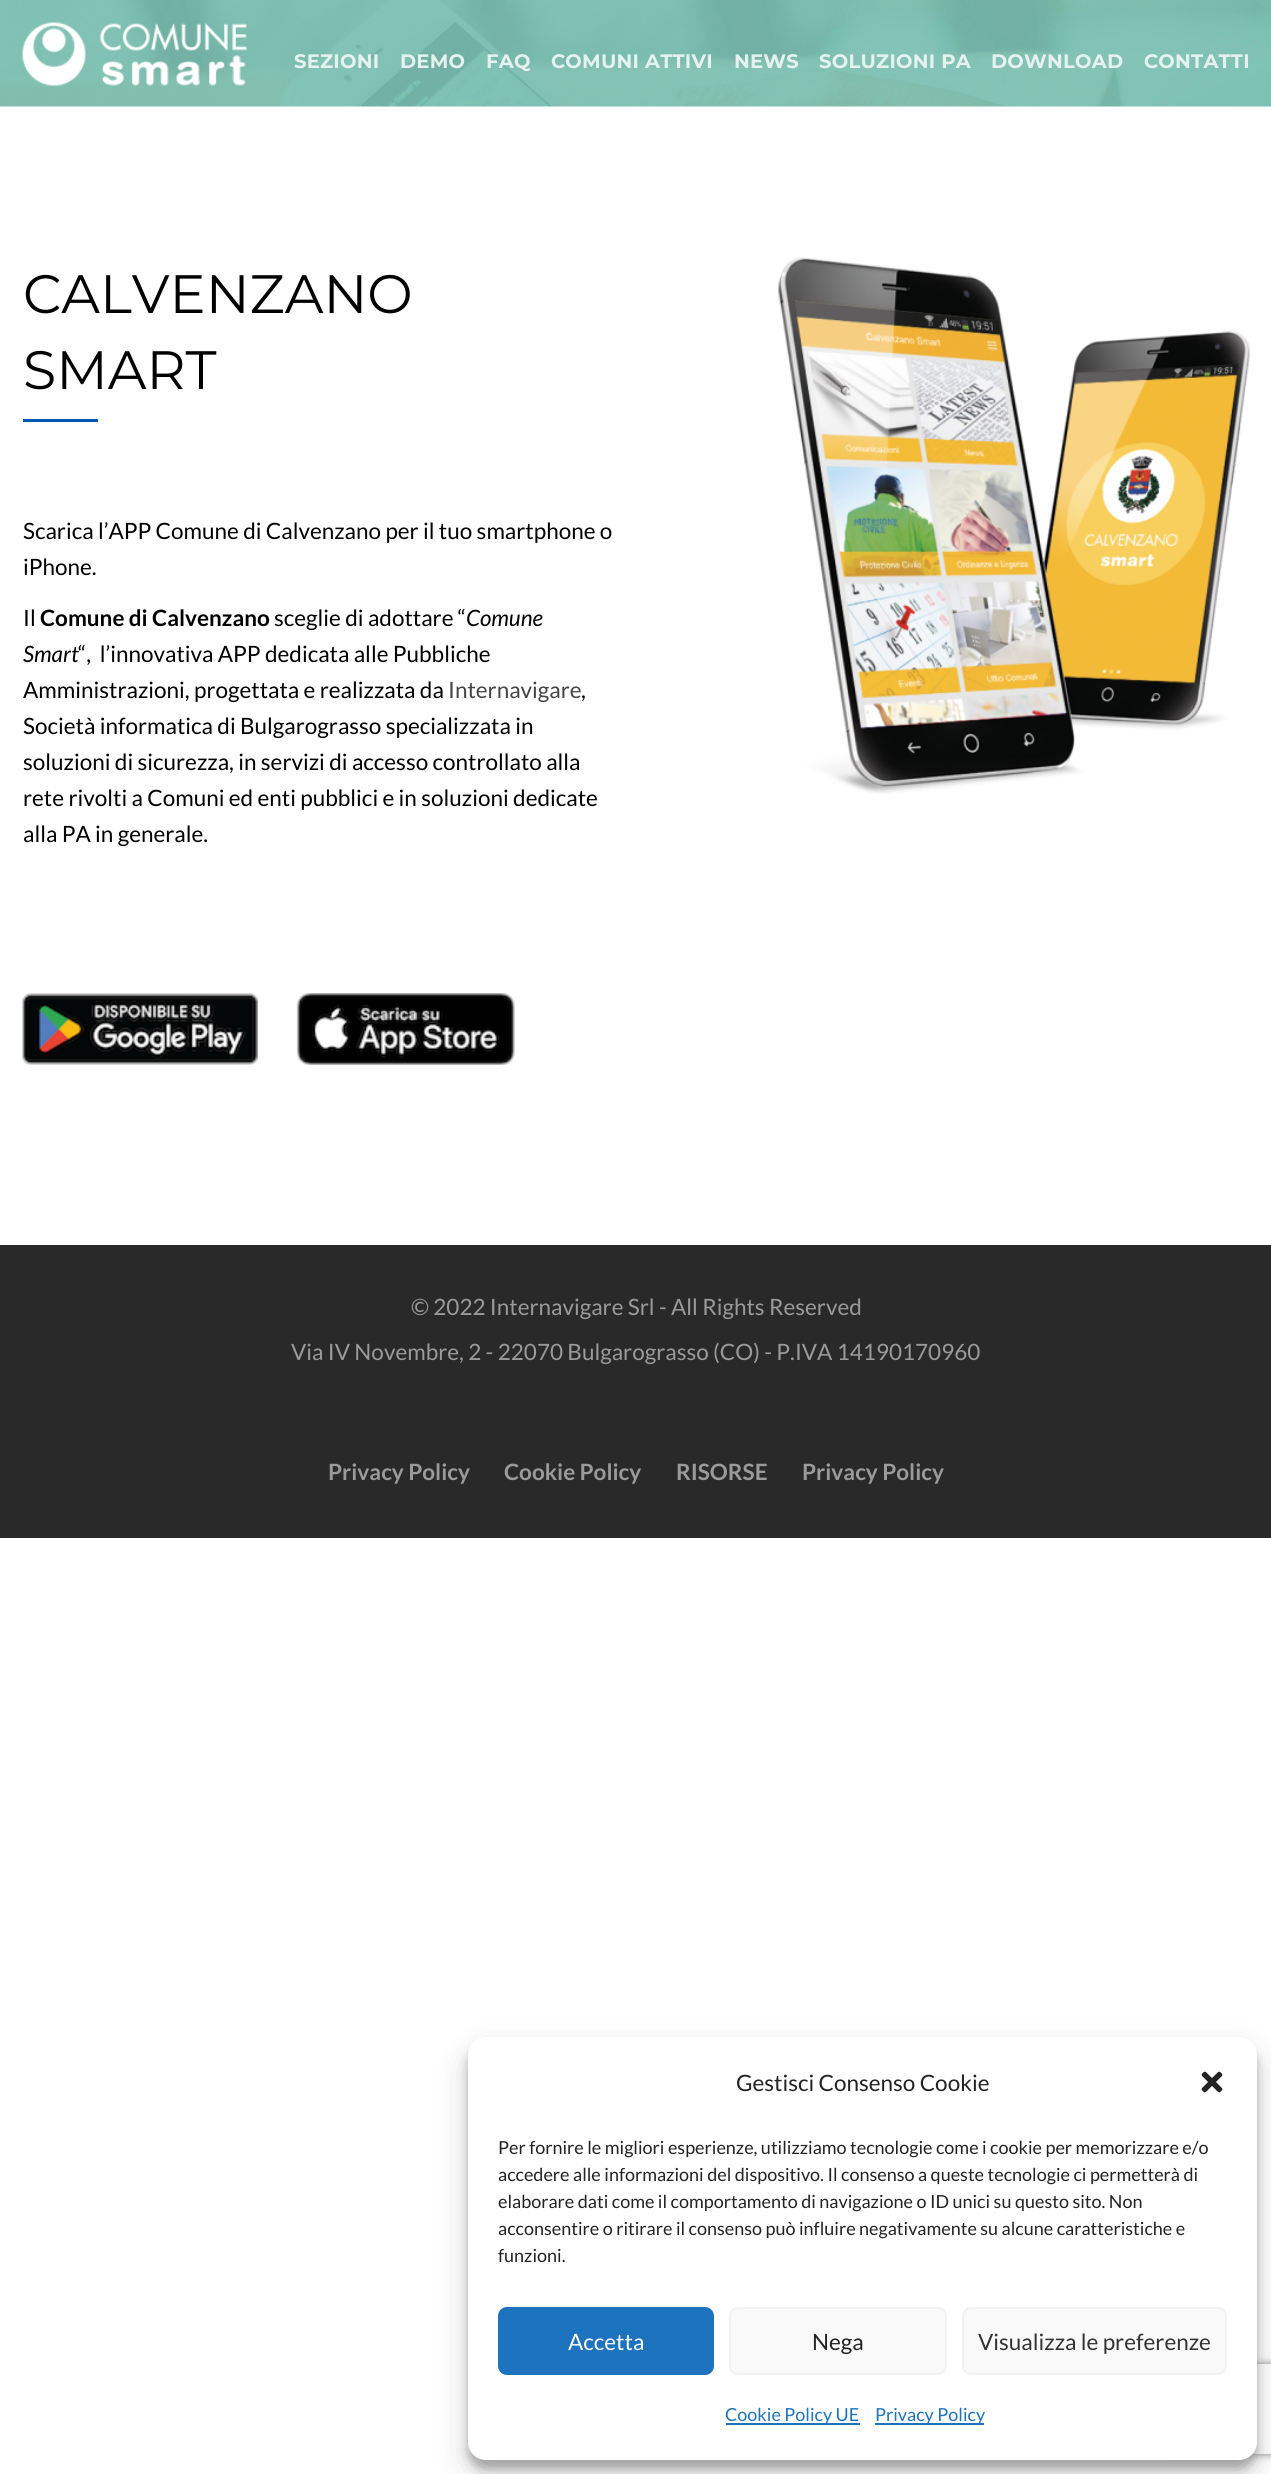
#include <cairo/cairo.h>
#include <math.h>
#include <stddef.h>

typedef struct { double x, y; const char *s; } line_t;
static cairo_t *cr;

static void rgb(unsigned color)
{
	cairo_set_source_rgb(cr, (color >> 16) / 255.0, (color >> 8 & 255) / 255.0, (color & 255) / 255.0);
}

static void tracked(double x, double y, const char *s, double letter, double word)
{
	cairo_move_to(cr, x, y);
	while (*s) {
		char ch[5] = {0};
		int n = 0;
		do ch[n++] = *s++; while ((*s & 0xC0) == 0x80);
		cairo_show_text(cr, ch);
		cairo_rel_move_to(cr, letter + word * (*ch == ' '), 0);
	}
}

static void rrect(double x, double y, double w, double h, double r)
{
	cairo_new_sub_path(cr);
	cairo_arc(cr, x + w - r, y + h - r, r, 0, M_PI / 2);
	cairo_arc(cr, x + r, y + h - r, r, M_PI / 2, M_PI);
	cairo_arc(cr, x + r, y + r, r, M_PI, 1.5 * M_PI);
	cairo_arc(cr, x + w - r, y + r, r, 1.5 * M_PI, 2 * M_PI);
	cairo_close_path(cr);
}

static void soft_shadow(double x, double y, double w, double h, double r, double blur, double alpha)
{
	cairo_push_group_with_content(cr, CAIRO_CONTENT_ALPHA);
	cairo_set_operator(cr, CAIRO_OPERATOR_SOURCE);
	for (int i = 15; i >= -15 && fmin(w, h) + blur * i / 3 > 0; i -= 2) {
		double e = blur * i / 6;
		cairo_set_source_rgba(cr, 0, 0, 0, alpha * erfc((i - 1) / 8.5) / 2);
		rrect(x - e, y - e, w + 2 * e, h + 2 * e, fmax(0, fmin(r + e + blur * .6, fmin(w, h) / 2 + e)));
		cairo_fill(cr);
	}
	cairo_pattern_t *soft = cairo_pop_group(cr);
	cairo_mask(cr, soft);
	cairo_pattern_destroy(soft);
}

static void image(const char *path, double x, double y, double w, double h)
{
	cairo_surface_t *image = cairo_image_surface_create_from_png(path);
	cairo_save(cr);
	cairo_set_source_surface(cr, image, x, y);
	cairo_rectangle(cr, x, y, w, h);
	cairo_fill(cr);
	cairo_restore(cr);
	cairo_surface_destroy(image);
}

int main(void) {
	cairo_surface_t *surface = cairo_image_surface_create(CAIRO_FORMAT_RGB24, 1271, 2474);
	cr = cairo_create(surface);
	cairo_font_options_t *options = cairo_font_options_create();
	cairo_font_options_set_hint_metrics(options, CAIRO_HINT_METRICS_OFF);
	cairo_font_options_set_hint_style(options, CAIRO_HINT_STYLE_NONE);
	cairo_set_font_options(cr, options);
	cairo_set_miter_limit(cr, 4);
	rgb(0xffffff);
	cairo_paint(cr);
	image("img/1.png", 0, 0, 1271, 107);
	image("img/2.png", 22, 22, 225, 64);
	rgb(0x0059b3);
	cairo_rectangle(cr, 23, 419, 75, 3);
	cairo_fill(cr);
	image("img/3.png", 22, 993, 236, 72);
	image("img/4.png", 296, 993, 219, 72);
	image("img/5.png", 778, 257, 472, 537);
	rgb(0x292929);
	cairo_rectangle(cr, 0, 1245, 1271, 293);
	cairo_fill(cr);
	rgb(0x000000);
	soft_shadow(468, 2046, 789, 423, 18, 4.5, 0.23);
	soft_shadow(468, 2052, 789, 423, 18, 15, 0.19);
	cairo_save(cr);
	cairo_set_fill_rule(cr, CAIRO_FILL_RULE_EVEN_ODD);
	cairo_new_path(cr);
	cairo_move_to(cr, 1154, 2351);
	cairo_line_to(cr, 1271, 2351);
	cairo_line_to(cr, 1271, 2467);
	cairo_line_to(cr, 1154, 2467);
	cairo_close_path(cr);
	cairo_move_to(cr, 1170, 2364);
	cairo_line_to(cr, 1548, 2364);
	cairo_curve_to(cr, 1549.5, 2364, 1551, 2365.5, 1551, 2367);
	cairo_line_to(cr, 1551, 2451);
	cairo_curve_to(cr, 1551, 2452.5, 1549.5, 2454, 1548, 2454);
	cairo_line_to(cr, 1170, 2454);
	cairo_curve_to(cr, 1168.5, 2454, 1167, 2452.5, 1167, 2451);
	cairo_line_to(cr, 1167, 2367);
	cairo_curve_to(cr, 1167, 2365.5, 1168.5, 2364, 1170, 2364);
	cairo_close_path(cr);
	cairo_clip(cr);
	rgb(0x808080);
	soft_shadow(1167, 2364, 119, 90, 3, 4, 1);
	cairo_restore(cr);
	rgb(0xffffff);
	rrect(468, 2037, 789, 423, 18);
	cairo_fill(cr);
	image("img/6.png", 1201, 2071, 22, 22);
	rgb(0x1e73be);
	rrect(499, 2308, 214, 66, 8);
	cairo_fill_preserve(cr);
	cairo_stroke(cr);
	rgb(0xf9f9f9);
	rrect(730, 2308, 216, 66, 8);
	cairo_fill_preserve(cr);
	rgb(0xf2f2f2);
	cairo_stroke(cr);
	rgb(0xf9f9f9);
	rrect(963, 2308, 263, 66, 8);
	cairo_fill_preserve(cr);
	rgb(0xf2f2f2);
	cairo_stroke(cr);
	rgb(0x1e73be);
	cairo_rectangle(cr, 726, 2423, 134, 2);
	cairo_fill(cr);
	cairo_rectangle(cr, 875, 2423, 109, 2);
	cairo_fill(cr);
	cairo_select_font_face(cr, "Montserrat", CAIRO_FONT_SLANT_NORMAL, CAIRO_FONT_WEIGHT_BOLD);
	cairo_set_font_size(cr, 19.5);
	rgb(0xe5f2f0);
	{
		static const line_t items[] = {
			{294, 68, "SEZIONI"},
			{400, 68, "DEMO"},
			{486, 68, "FAQ"},
			{551, 68, "COMUNI ATTIVI"},
			{734, 68, "NEWS"},
			{819, 68, "SOLUZIONI PA"},
			{991, 68, "DOWNLOAD"},
			{1144, 68, "CONTATTI"},
		};
		for (size_t i = 0; i < sizeof items / sizeof *items; i++) {
			tracked(items[i].x, items[i].y, items[i].s, 0.25, 0);
		}
	}
	cairo_select_font_face(cr, "Montserrat", CAIRO_FONT_SLANT_NORMAL, CAIRO_FONT_WEIGHT_NORMAL);
	cairo_set_font_size(cr, 54);
	rgb(0x000000);
	cairo_move_to(cr, 23, 313);
	cairo_show_text(cr, "CALVENZANO");
	cairo_move_to(cr, 23, 389);
	cairo_show_text(cr, "SMART");
	cairo_select_font_face(cr, "Lato", CAIRO_FONT_SLANT_NORMAL, CAIRO_FONT_WEIGHT_NORMAL);
	cairo_set_font_size(cr, 22.5);
	{
		static const line_t items[] = {
			{23, 539, "Scarica l’APP Comune di Calvenzano per il tuo smartphone o"},
			{23, 575, "iPhone."},
			{23, 626, "Il"},
		};
		for (size_t i = 0; i < sizeof items / sizeof *items; i++) {
			cairo_move_to(cr, items[i].x, items[i].y);
			cairo_show_text(cr, items[i].s);
		}
	}
	cairo_select_font_face(cr, "Lato", CAIRO_FONT_SLANT_NORMAL, CAIRO_FONT_WEIGHT_BOLD);
	cairo_move_to(cr, 40, 626);
	cairo_show_text(cr, "Comune di Calvenzano");
	cairo_select_font_face(cr, "Lato", CAIRO_FONT_SLANT_NORMAL, CAIRO_FONT_WEIGHT_NORMAL);
	cairo_move_to(cr, 274, 626);
	cairo_show_text(cr, "sceglie di adottare “");
	cairo_select_font_face(cr, "Lato", CAIRO_FONT_SLANT_ITALIC, CAIRO_FONT_WEIGHT_NORMAL);
	cairo_move_to(cr, 466, 626);
	cairo_show_text(cr, "Comune");
	cairo_move_to(cr, 23, 662);
	cairo_show_text(cr, "Smart");
	cairo_select_font_face(cr, "Lato", CAIRO_FONT_SLANT_NORMAL, CAIRO_FONT_WEIGHT_NORMAL);
	cairo_move_to(cr, 78, 662);
	cairo_show_text(cr, "“,  l’innovativa APP dedicata alle Pubbliche");
	cairo_move_to(cr, 23, 698);
	cairo_show_text(cr, "Amministrazioni, progettata e realizzata da");
	rgb(0x444444);
	cairo_move_to(cr, 448, 698);
	cairo_show_text(cr, "Internavigare");
	rgb(0x000000);
	{
		static const line_t items[] = {
			{581, 698, ","},
			{23, 734, "Società informatica di Bulgarograsso specializzata in"},
			{23, 770, "soluzioni di sicurezza, in servizi di accesso controllato alla"},
			{23, 806, "rete rivolti a Comuni ed enti pubblici e in soluzioni dedicate"},
			{23, 842, "alla PA in generale."},
		};
		for (size_t i = 0; i < sizeof items / sizeof *items; i++) {
			cairo_move_to(cr, items[i].x, items[i].y);
			cairo_show_text(cr, items[i].s);
		}
	}
	rgb(0x9a9a9a);
	cairo_move_to(cr, 411, 1315);
	cairo_show_text(cr, "© 2022 Internavigare Srl - All Rights Reserved");
	cairo_move_to(cr, 291, 1360);
	cairo_show_text(cr, "Via IV Novembre, 2 - 22070 Bulgarograsso (CO) - P.IVA 14190170960");
	cairo_select_font_face(cr, "Lato", CAIRO_FONT_SLANT_NORMAL, CAIRO_FONT_WEIGHT_BOLD);
	{
		static const line_t items[] = {
			{328, 1480, "Privacy Policy"},
			{504, 1480, "Cookie Policy"},
			{676, 1480, "RISORSE"},
			{802, 1480, "Privacy Policy"},
		};
		for (size_t i = 0; i < sizeof items / sizeof *items; i++) {
			cairo_move_to(cr, items[i].x, items[i].y);
			cairo_show_text(cr, items[i].s);
		}
	}
	cairo_select_font_face(cr, "Lato", CAIRO_FONT_SLANT_NORMAL, CAIRO_FONT_WEIGHT_NORMAL);
	rgb(0x222222);
	cairo_move_to(cr, 736, 2091);
	cairo_show_text(cr, "Gestisci Consenso Cookie");
	cairo_set_font_size(cr, 18);
	{
		static const line_t items[] = {
			{498, 2154, "Per fornire le migliori esperienze, utilizziamo tecnologie come i cookie per memorizzare e/o"},
			{498, 2181, "accedere alle informazioni del dispositivo. Il consenso a queste tecnologie ci permetterà di"},
			{498, 2208, "elaborare dati come il comportamento di navigazione o ID unici su questo sito. Non"},
			{498, 2235, "acconsentire o ritirare il consenso può influire negativamente su alcune caratteristiche e"},
			{498, 2262, "funzioni."},
		};
		for (size_t i = 0; i < sizeof items / sizeof *items; i++) {
			cairo_move_to(cr, items[i].x, items[i].y);
			cairo_show_text(cr, items[i].s);
		}
	}
	cairo_set_font_size(cr, 22.5);
	rgb(0xffffff);
	cairo_move_to(cr, 568, 2350);
	cairo_show_text(cr, "Accetta");
	rgb(0x222222);
	cairo_move_to(cr, 812, 2350);
	cairo_show_text(cr, "Nega");
	rgb(0x333333);
	cairo_move_to(cr, 978, 2350);
	cairo_show_text(cr, "Visualizza le preferenze");
	cairo_set_font_size(cr, 18);
	rgb(0x1e73be);
	cairo_move_to(cr, 725, 2421);
	cairo_show_text(cr, "Cookie Policy UE");
	cairo_move_to(cr, 875, 2421);
	cairo_show_text(cr, "Privacy Policy");
	cairo_surface_write_to_png(surface, "page.png");
	cairo_font_options_destroy(options);
	cairo_destroy(cr);
	cairo_surface_destroy(surface);
	return 0;
}
